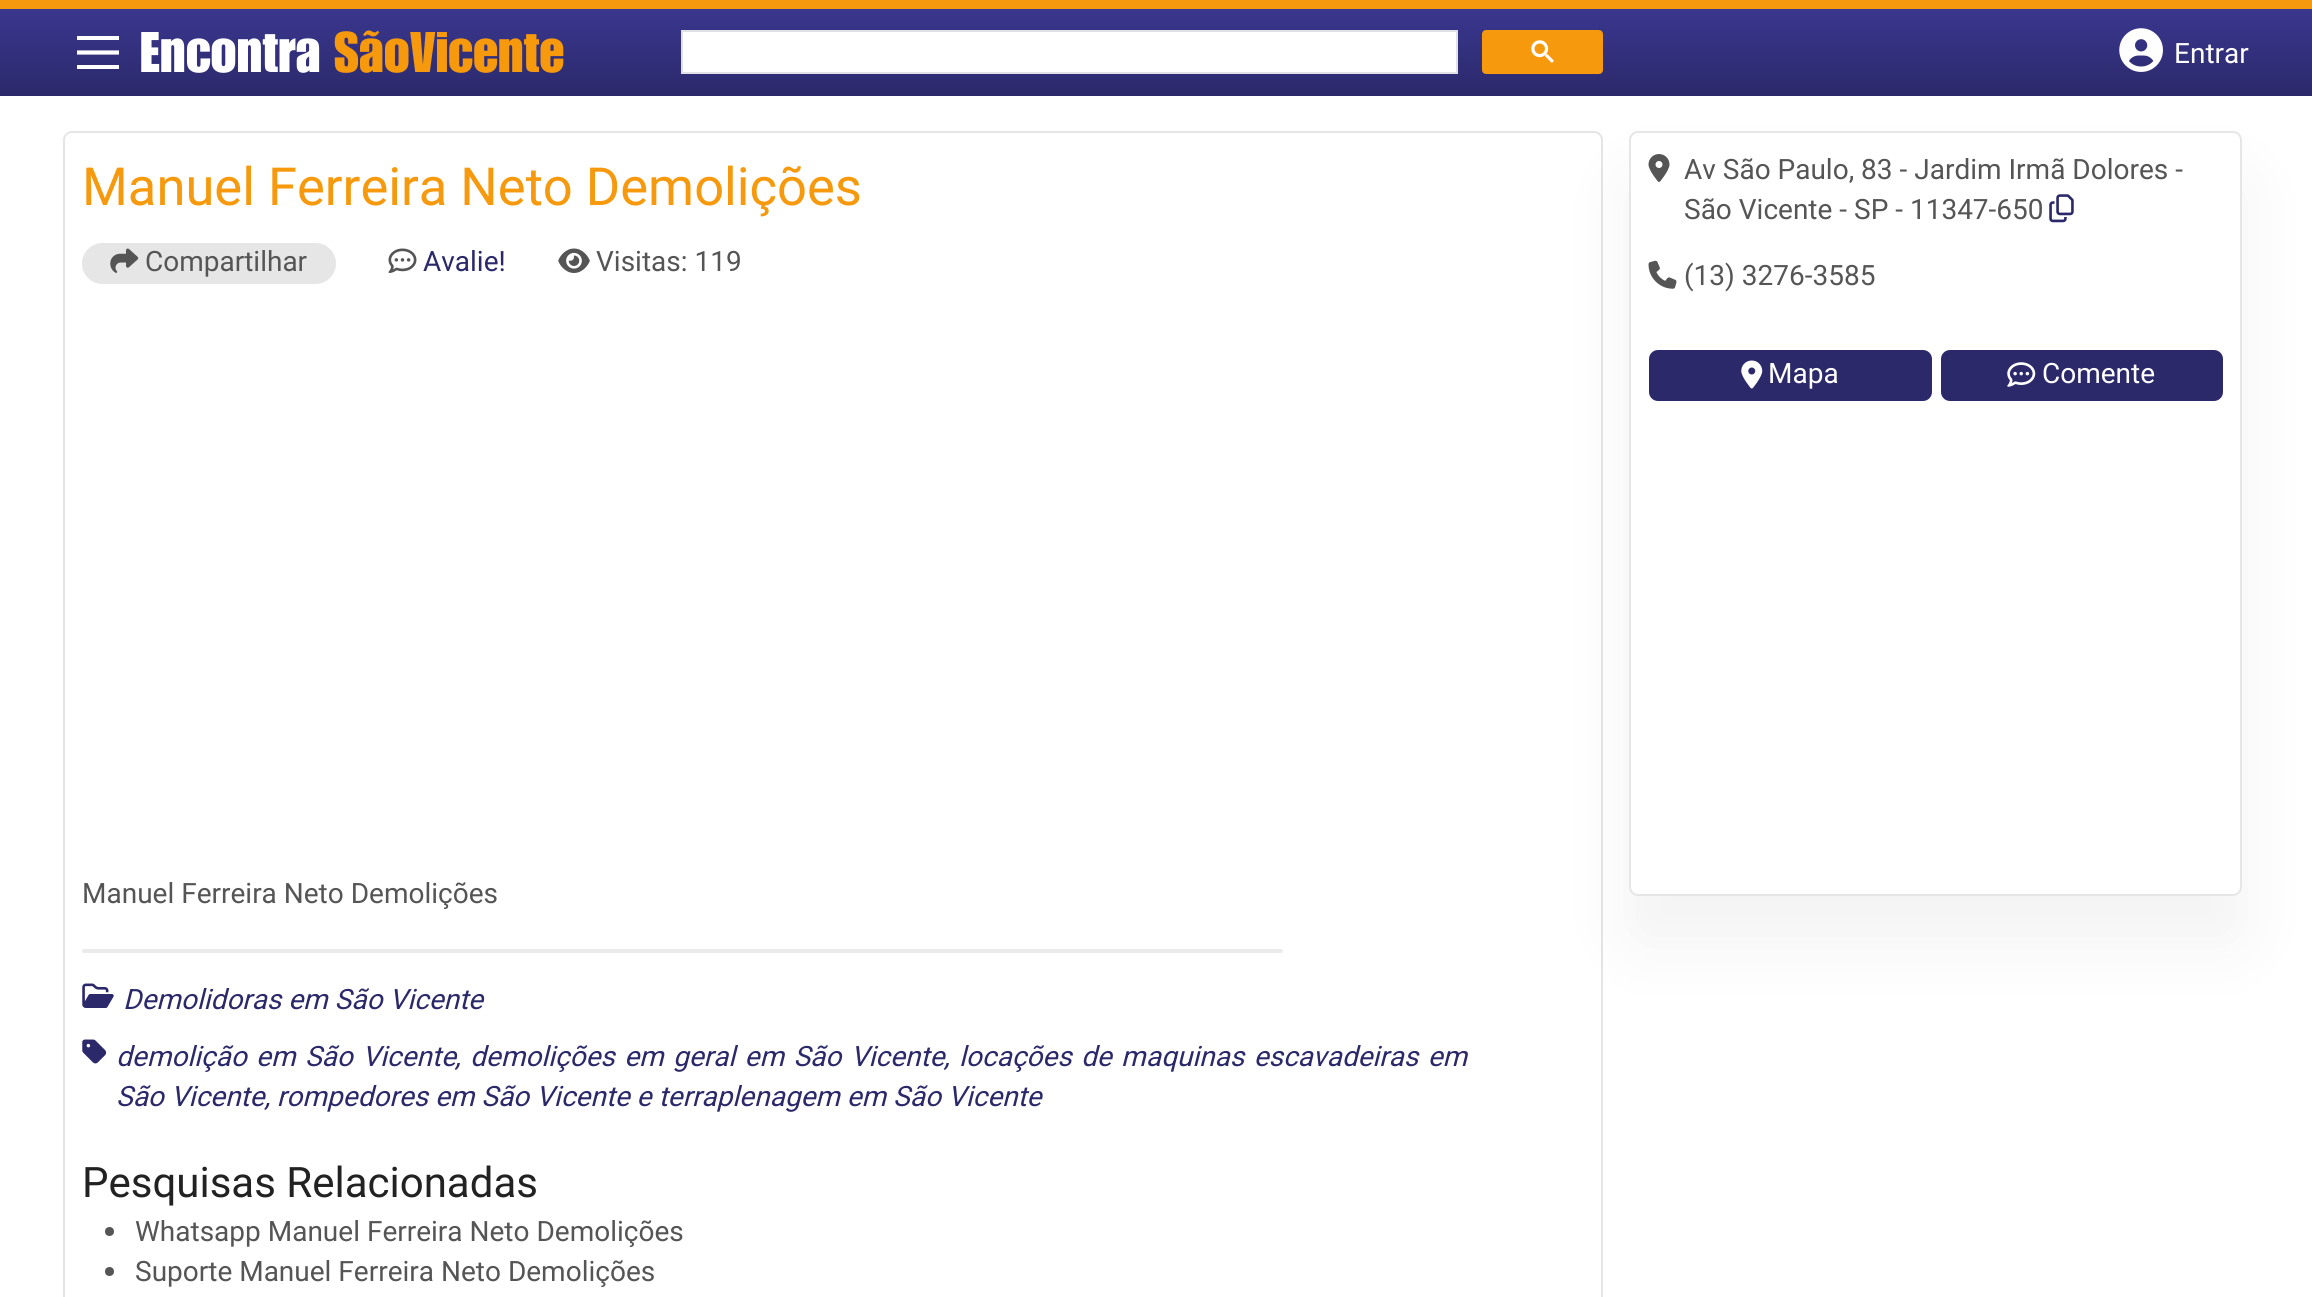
#include <cairo/cairo.h>
#include <math.h>
#include <stddef.h>

typedef struct { double x, y; const char *s; } line_t;
static cairo_t *cr;

static void rgb(unsigned color)
{
	cairo_set_source_rgb(cr, (color >> 16) / 255.0, (color >> 8 & 255) / 255.0, (color & 255) / 255.0);
}

static void tracked(double x, double y, const char *s, double letter, double word)
{
	cairo_move_to(cr, x, y);
	while (*s) {
		char ch[5] = {0};
		int n = 0;
		do ch[n++] = *s++; while ((*s & 0xC0) == 0x80);
		cairo_show_text(cr, ch);
		cairo_rel_move_to(cr, letter + word * (*ch == ' '), 0);
	}
}

static void rrect(double x, double y, double w, double h, double r)
{
	cairo_new_sub_path(cr);
	cairo_arc(cr, x + w - r, y + h - r, r, 0, M_PI / 2);
	cairo_arc(cr, x + r, y + h - r, r, M_PI / 2, M_PI);
	cairo_arc(cr, x + r, y + r, r, M_PI, 1.5 * M_PI);
	cairo_arc(cr, x + w - r, y + r, r, 1.5 * M_PI, 2 * M_PI);
	cairo_close_path(cr);
}

static void soft_shadow(double x, double y, double w, double h, double r, double blur, double alpha)
{
	cairo_push_group_with_content(cr, CAIRO_CONTENT_ALPHA);
	cairo_set_operator(cr, CAIRO_OPERATOR_SOURCE);
	for (int i = 15; i >= -15 && fmin(w, h) + blur * i / 3 > 0; i -= 2) {
		double e = blur * i / 6;
		cairo_set_source_rgba(cr, 0, 0, 0, alpha * erfc((i - 1) / 8.5) / 2);
		rrect(x - e, y - e, w + 2 * e, h + 2 * e, fmax(0, fmin(r + e + blur * .6, fmin(w, h) / 2 + e)));
		cairo_fill(cr);
	}
	cairo_pattern_t *soft = cairo_pop_group(cr);
	cairo_mask(cr, soft);
	cairo_pattern_destroy(soft);
}

static void image(const char *path, double x, double y, double w, double h)
{
	cairo_surface_t *image = cairo_image_surface_create_from_png(path);
	cairo_save(cr);
	cairo_set_source_surface(cr, image, x, y);
	cairo_rectangle(cr, x, y, w, h);
	cairo_fill(cr);
	cairo_restore(cr);
	cairo_surface_destroy(image);
}

int main(void) {
	cairo_surface_t *surface = cairo_image_surface_create(CAIRO_FORMAT_RGB24, 2312, 1297);
	cr = cairo_create(surface);
	cairo_font_options_t *options = cairo_font_options_create();
	cairo_font_options_set_hint_metrics(options, CAIRO_HINT_METRICS_OFF);
	cairo_font_options_set_hint_style(options, CAIRO_HINT_STYLE_NONE);
	cairo_set_font_options(cr, options);
	cairo_set_miter_limit(cr, 4);
	cairo_pattern_t *gradient;
	rgb(0xffffff);
	cairo_paint(cr);
	rrect(64, 132, 1538, 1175, 8);
	rgb(0xe5e5e5);
	cairo_stroke(cr);
	cairo_save(cr);
	cairo_set_fill_rule(cr, CAIRO_FILL_RULE_EVEN_ODD);
	cairo_new_path(cr);
	cairo_move_to(cr, 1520, 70);
	cairo_line_to(cr, 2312, 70);
	cairo_line_to(cr, 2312, 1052);
	cairo_line_to(cr, 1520, 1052);
	cairo_close_path(cr);
	cairo_move_to(cr, 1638, 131);
	cairo_line_to(cr, 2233, 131);
	cairo_curve_to(cr, 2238, 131, 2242, 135, 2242, 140);
	cairo_line_to(cr, 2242, 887);
	cairo_curve_to(cr, 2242, 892, 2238, 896, 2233, 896);
	cairo_line_to(cr, 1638, 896);
	cairo_curve_to(cr, 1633, 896, 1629, 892, 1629, 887);
	cairo_line_to(cr, 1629, 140);
	cairo_curve_to(cr, 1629, 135, 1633, 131, 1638, 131);
	cairo_close_path(cr);
	cairo_clip(cr);
	rgb(0x000000);
	soft_shadow(1629, 179, 613, 764, 9, 36, 0.05);
	cairo_restore(cr);
	gradient = cairo_pattern_create_linear(1157, 9, 1157, 96);
	cairo_pattern_add_color_stop_rgba(gradient, 0, 0.227, 0.216, 0.561, 1);
	cairo_pattern_add_color_stop_rgba(gradient, 1, 0.169, 0.161, 0.416, 1);
	cairo_set_source(cr, gradient);
	cairo_pattern_destroy(gradient);
	cairo_rectangle(cr, 0, 9, 2312, 87);
	cairo_fill(cr);
	rgb(0xf6990d);
	cairo_rectangle(cr, 0, 0, 2312, 9);
	cairo_fill(cr);
	rgb(0xfefefe);
	cairo_rectangle(cr, 77, 36, 42, 4);
	cairo_fill(cr);
	cairo_new_path(cr);
	cairo_move_to(cr, 77, 52.5);
	cairo_line_to(cr, 119, 52.5);
	cairo_set_line_width(cr, 4.2);
	cairo_stroke(cr);
	cairo_rectangle(cr, 77, 65, 42, 4);
	cairo_fill(cr);
	rgb(0xffffff);
	cairo_rectangle(cr, 682, 31, 775, 42);
	cairo_fill_preserve(cr);
	rgb(0xdfe1e5);
	cairo_set_line_width(cr, 2);
	cairo_stroke(cr);
	rgb(0xf6990d);
	rrect(1483, 31, 119, 42, 3);
	cairo_fill_preserve(cr);
	cairo_stroke(cr);
	image("img/1.png", 1531, 40, 23, 23);
	image("img/2.png", 2119, 28, 44, 44);
	rgb(0xe6e6e6);
	rrect(82, 243, 254, 41, 20.5);
	cairo_fill(cr);
	image("img/3.png", 110, 248, 29, 25);
	image("img/4.png", 388, 248, 29, 25);
	image("img/5.png", 558, 248, 32, 25);
	rgb(0xebebeb);
	rrect(82, 949, 1201, 4, 2);
	cairo_fill(cr);
	image("img/6.png", 82, 983, 32, 25);
	image("img/7.png", 82, 1039, 25, 25);
	rgb(0x555555);
	cairo_arc(cr, 109.5, 1231.5, 4.5, 0, 2 * M_PI);
	cairo_fill(cr);
	cairo_arc(cr, 109.5, 1271.5, 4.5, 0, 2 * M_PI);
	cairo_fill(cr);
	rrect(1630, 132, 611, 763, 8);
	cairo_set_source_rgba(cr, 0, 0, 0, 0.1);
	cairo_stroke(cr);
	image("img/8.png", 1648, 154, 22, 28);
	image("img/9.png", 2049, 194, 25, 29);
	image("img/10.png", 1648, 260, 29, 29);
	rgb(0x2b296a);
	rrect(1649, 350, 283, 51, 9);
	cairo_fill(cr);
	image("img/11.png", 1741, 360, 22, 29);
	rrect(1941, 350, 282, 51, 9);
	cairo_fill(cr);
	image("img/12.png", 2007, 362, 29, 25);
	cairo_select_font_face(cr, "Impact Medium", CAIRO_FONT_SLANT_NORMAL, CAIRO_FONT_WEIGHT_NORMAL);
	cairo_set_font_size(cr, 56);
	rgb(0xffffff);
	cairo_move_to(cr, 140, 72);
	cairo_show_text(cr, "Encontra");
	rgb(0xf6990d);
	cairo_move_to(cr, 334, 72);
	cairo_show_text(cr, "SãoVicente");
	cairo_select_font_face(cr, "Roboto", CAIRO_FONT_SLANT_NORMAL, CAIRO_FONT_WEIGHT_NORMAL);
	cairo_set_font_size(cr, 28);
	rgb(0xffffff);
	cairo_move_to(cr, 2174, 63);
	cairo_show_text(cr, "Entrar");
	cairo_set_font_size(cr, 52.5);
	rgb(0xf6990d);
	cairo_move_to(cr, 82, 205);
	cairo_show_text(cr, "Manuel Ferreira Neto Demolições");
	cairo_set_font_size(cr, 28);
	rgb(0x555555);
	cairo_move_to(cr, 145, 271);
	cairo_show_text(cr, "Compartilhar");
	rgb(0x2b296a);
	cairo_move_to(cr, 423, 271);
	cairo_show_text(cr, "Avalie!");
	rgb(0x555555);
	cairo_move_to(cr, 596, 271);
	cairo_show_text(cr, "Visitas: 119");
	cairo_move_to(cr, 82, 903);
	cairo_show_text(cr, "Manuel Ferreira Neto Demolições");
	cairo_select_font_face(cr, "Roboto", CAIRO_FONT_SLANT_ITALIC, CAIRO_FONT_WEIGHT_NORMAL);
	rgb(0x2b296a);
	cairo_move_to(cr, 123, 1009);
	cairo_show_text(cr, "Demolidoras em São Vicente");
	tracked(116, 1066, "demolição em São Vicente", 0, 2.5);
	cairo_move_to(cr, 455, 1066);
	cairo_show_text(cr, ",");
	tracked(470, 1066, "demolições em geral em São Vicente", 0, 2.5);
	cairo_move_to(cr, 944, 1066);
	cairo_show_text(cr, ",");
	tracked(959, 1066, "locações de maquinas escavadeiras em", 0, 2.5);
	cairo_move_to(cr, 116, 1106);
	cairo_show_text(cr, "São Vicente, rompedores em São Vicente e terraplenagem em São Vicente");
	cairo_select_font_face(cr, "Roboto", CAIRO_FONT_SLANT_NORMAL, CAIRO_FONT_WEIGHT_NORMAL);
	cairo_set_font_size(cr, 42);
	rgb(0x222222);
	cairo_move_to(cr, 82, 1197);
	cairo_show_text(cr, "Pesquisas Relacionadas");
	cairo_set_font_size(cr, 28);
	rgb(0x555555);
	{
		static const line_t items[] = {
			{135, 1241, "Whatsapp Manuel Ferreira Neto Demolições"},
			{135, 1281, "Suporte Manuel Ferreira Neto Demolições"},
			{1684, 179, "Av São Paulo, 83 - Jardim Irmã Dolores -"},
			{1684, 219, "São Vicente - SP - 11347-650"},
			{1684, 285, "(13) 3276-3585"},
		};
		for (size_t i = 0; i < sizeof items / sizeof *items; i++) {
			cairo_move_to(cr, items[i].x, items[i].y);
			cairo_show_text(cr, items[i].s);
		}
	}
	rgb(0xffffff);
	cairo_move_to(cr, 1768, 383);
	cairo_show_text(cr, "Mapa");
	cairo_move_to(cr, 2042, 383);
	cairo_show_text(cr, "Comente");
	cairo_surface_write_to_png(surface, "page.png");
	cairo_font_options_destroy(options);
	cairo_destroy(cr);
	cairo_surface_destroy(surface);
	return 0;
}
